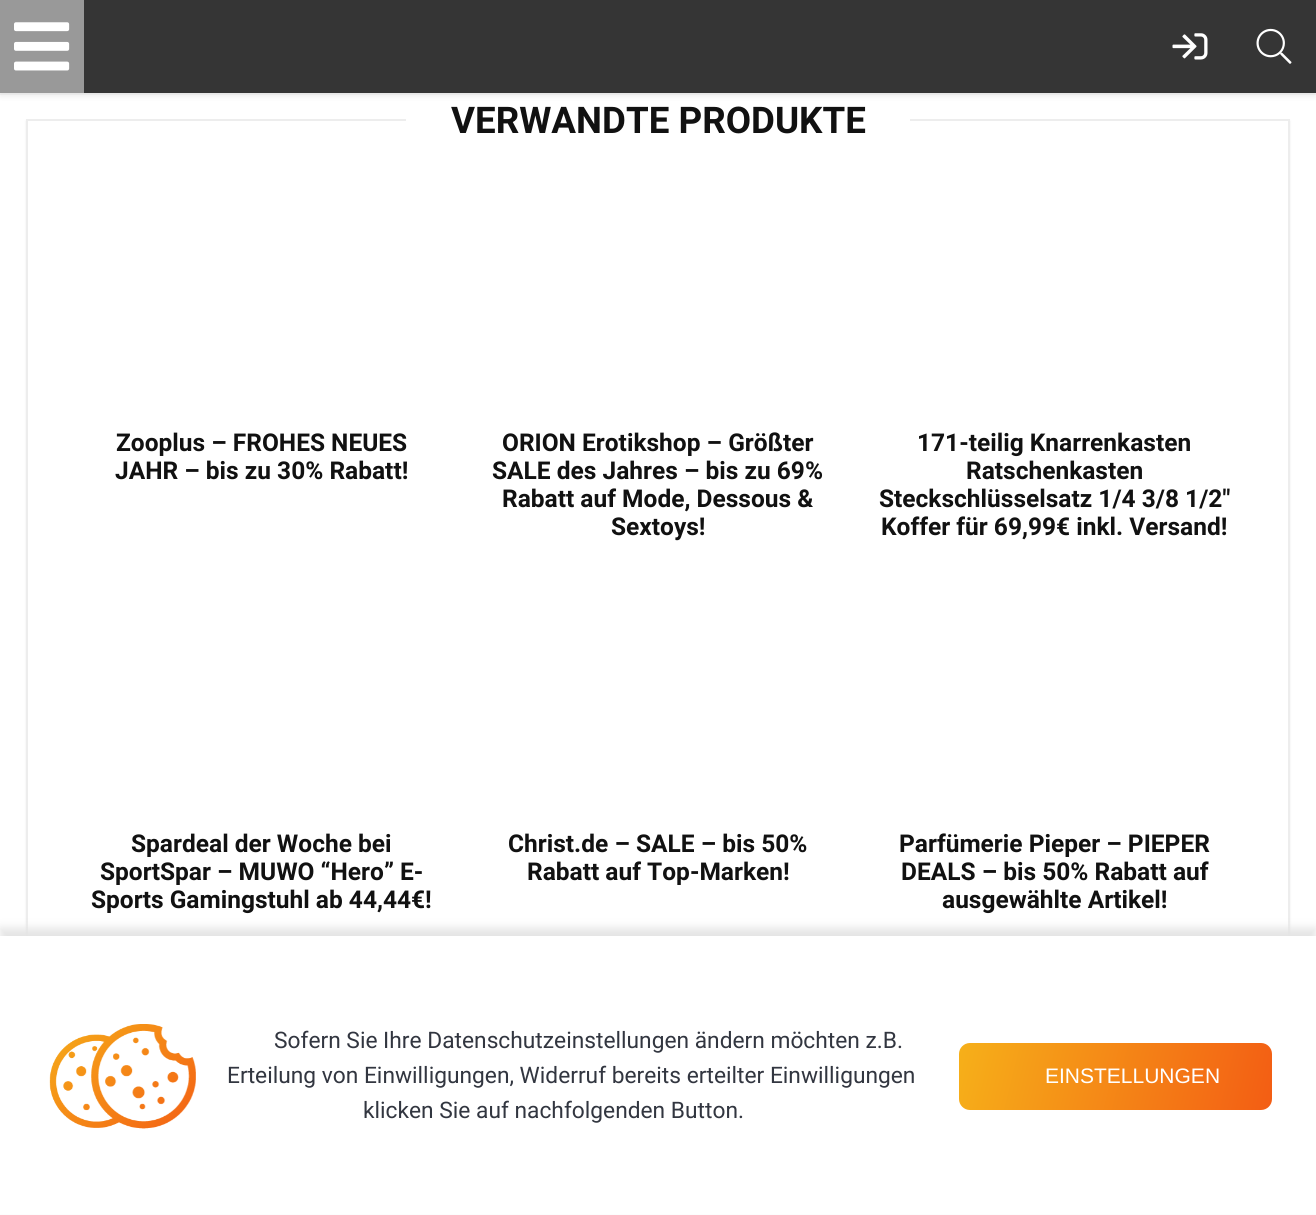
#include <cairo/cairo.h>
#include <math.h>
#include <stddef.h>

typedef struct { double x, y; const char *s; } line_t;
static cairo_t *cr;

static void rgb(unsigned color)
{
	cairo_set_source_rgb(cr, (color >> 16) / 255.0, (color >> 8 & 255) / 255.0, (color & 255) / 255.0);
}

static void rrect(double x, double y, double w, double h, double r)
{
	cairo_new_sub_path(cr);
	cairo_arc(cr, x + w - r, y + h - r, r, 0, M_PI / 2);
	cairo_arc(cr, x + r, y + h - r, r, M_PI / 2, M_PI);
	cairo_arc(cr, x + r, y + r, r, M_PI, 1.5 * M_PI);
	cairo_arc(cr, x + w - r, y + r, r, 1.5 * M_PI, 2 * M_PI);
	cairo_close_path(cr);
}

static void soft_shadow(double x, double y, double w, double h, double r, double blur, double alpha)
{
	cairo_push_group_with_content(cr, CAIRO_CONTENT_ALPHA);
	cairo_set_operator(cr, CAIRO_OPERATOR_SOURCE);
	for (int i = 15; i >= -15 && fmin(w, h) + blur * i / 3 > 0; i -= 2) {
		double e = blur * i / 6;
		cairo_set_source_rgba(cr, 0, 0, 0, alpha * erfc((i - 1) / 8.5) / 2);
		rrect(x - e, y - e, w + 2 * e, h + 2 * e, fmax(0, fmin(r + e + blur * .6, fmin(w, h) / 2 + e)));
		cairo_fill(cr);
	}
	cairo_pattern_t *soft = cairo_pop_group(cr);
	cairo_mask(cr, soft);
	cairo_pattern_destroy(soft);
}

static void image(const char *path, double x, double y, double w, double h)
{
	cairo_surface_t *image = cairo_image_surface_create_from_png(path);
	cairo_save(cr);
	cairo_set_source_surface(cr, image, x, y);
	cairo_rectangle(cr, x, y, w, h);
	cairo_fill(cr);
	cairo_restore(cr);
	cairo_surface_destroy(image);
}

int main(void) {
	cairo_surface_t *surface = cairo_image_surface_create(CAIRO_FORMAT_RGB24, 1316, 1215);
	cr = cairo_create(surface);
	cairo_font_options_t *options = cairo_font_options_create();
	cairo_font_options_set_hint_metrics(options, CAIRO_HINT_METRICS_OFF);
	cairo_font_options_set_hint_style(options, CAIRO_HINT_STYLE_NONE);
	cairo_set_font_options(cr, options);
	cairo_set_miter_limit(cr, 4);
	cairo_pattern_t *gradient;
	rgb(0xffffff);
	cairo_paint(cr);
	cairo_rectangle(cr, -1, -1, 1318, 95);
	rgb(0xf7f7f7);
	cairo_stroke(cr);
	rgb(0x000000);
	soft_shadow(0, 2, 1316, 93, 0, 3.5, 0.1);
	rgb(0x353535);
	cairo_rectangle(cr, 84, 0, 1232, 93);
	cairo_fill(cr);
	rgb(0x999999);
	cairo_rectangle(cr, 0, 0, 84, 93);
	cairo_fill(cr);
	image("img/1.png", 14, 22, 56, 49);
	image("img/2.png", 1172, 33, 36, 27);
	image("img/3.png", 1256, 28, 36, 36);
	cairo_save(cr);
	cairo_set_fill_rule(cr, CAIRO_FILL_RULE_EVEN_ODD);
	cairo_new_path(cr);
	cairo_move_to(cr, 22, 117);
	cairo_line_to(cr, 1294, 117);
	cairo_line_to(cr, 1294, 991);
	cairo_line_to(cr, 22, 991);
	cairo_close_path(cr);
	cairo_move_to(cr, 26, 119);
	cairo_line_to(cr, 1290, 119);
	cairo_line_to(cr, 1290, 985);
	cairo_line_to(cr, 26, 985);
	cairo_close_path(cr);
	cairo_clip(cr);
	rgb(0xededed);
	soft_shadow(26, 121, 1264, 866, 0, 1, 1);
	cairo_restore(cr);
	cairo_rectangle(cr, 27, 120, 1262, 864);
	rgb(0xededed);
	cairo_stroke(cr);
	rgb(0xffffff);
	cairo_rectangle(cr, 406, 119, 504, 2);
	cairo_fill(cr);
	rgb(0xe4e4e4);
	soft_shadow(0, 928, 1316, 280, 0, 4.5, 1);
	rgb(0xffffff);
	cairo_rectangle(cr, 0, 936, 1316, 278);
	cairo_fill(cr);
	image("img/4.png", 49, 1024, 147, 105);
	gradient = cairo_pattern_create_linear(960, 1038, 1271, 1115);
	cairo_pattern_add_color_stop_rgba(gradient, 0, 0.965, 0.69, 0.098, 1);
	cairo_pattern_add_color_stop_rgba(gradient, 1, 0.953, 0.365, 0.078, 1);
	cairo_set_source(cr, gradient);
	cairo_pattern_destroy(gradient);
	rrect(959, 1043, 313, 67, 11);
	cairo_fill(cr);
	cairo_select_font_face(cr, "Roboto", CAIRO_FONT_SLANT_NORMAL, CAIRO_FONT_WEIGHT_BOLD);
	cairo_set_font_size(cr, 36.75);
	rgb(0x111111);
	cairo_move_to(cr, 451, 133);
	cairo_show_text(cr, "VERWANDTE PRODUKTE");
	cairo_set_font_size(cr, 24.5);
	{
		static const line_t items[] = {
			{116, 451, "Zooplus – FROHES NEUES"},
			{115, 479, "JAHR – bis zu 30% Rabatt!"},
			{502, 451, "ORION Erotikshop – Größter"},
			{492, 479, "SALE des Jahres – bis zu 69%"},
			{502, 507, "Rabatt auf Mode, Dessous &"},
			{611, 535, "Sextoys!"},
			{917, 451, "171-teilig Knarrenkasten"},
			{966, 479, "Ratschenkasten"},
			{879, 507, "Steckschlüsselsatz 1/4 3/8 1/2″"},
			{881, 535, "Koffer für 69,99€ inkl. Versand!"},
			{131, 852, "Spardeal der Woche bei"},
			{100, 880, "SportSpar – MUWO “Hero” E-"},
			{91, 908, "Sports Gamingstuhl ab 44,44€!"},
			{508, 852, "Christ.de – SALE – bis 50%"},
			{527, 880, "Rabatt auf Top-Marken!"},
			{899, 852, "Parfümerie Pieper – PIEPER"},
			{901, 880, "DEALS – bis 50% Rabatt auf"},
			{942, 908, "ausgewählte Artikel!"},
		};
		for (size_t i = 0; i < sizeof items / sizeof *items; i++) {
			cairo_move_to(cr, items[i].x, items[i].y);
			cairo_show_text(cr, items[i].s);
		}
	}
	cairo_select_font_face(cr, "Roboto", CAIRO_FONT_SLANT_NORMAL, CAIRO_FONT_WEIGHT_NORMAL);
	cairo_set_font_size(cr, 22.75);
	rgb(0x323640);
	{
		static const line_t items[] = {
			{274, 1048, "Sofern Sie Ihre Datenschutzeinstellungen ändern möchten z.B."},
			{227, 1083, "Erteilung von Einwilligungen, Widerruf bereits erteilter Einwilligungen"},
			{363, 1118, "klicken Sie auf nachfolgenden Button."},
		};
		for (size_t i = 0; i < sizeof items / sizeof *items; i++) {
			cairo_move_to(cr, items[i].x, items[i].y);
			cairo_show_text(cr, items[i].s);
		}
	}
	cairo_select_font_face(cr, "Liberation Sans", CAIRO_FONT_SLANT_NORMAL, CAIRO_FONT_WEIGHT_NORMAL);
	cairo_set_font_size(cr, 21);
	rgb(0xffffff);
	cairo_move_to(cr, 1045, 1083);
	cairo_show_text(cr, "EINSTELLUNGEN");
	cairo_surface_write_to_png(surface, "page.png");
	cairo_font_options_destroy(options);
	cairo_destroy(cr);
	cairo_surface_destroy(surface);
	return 0;
}
